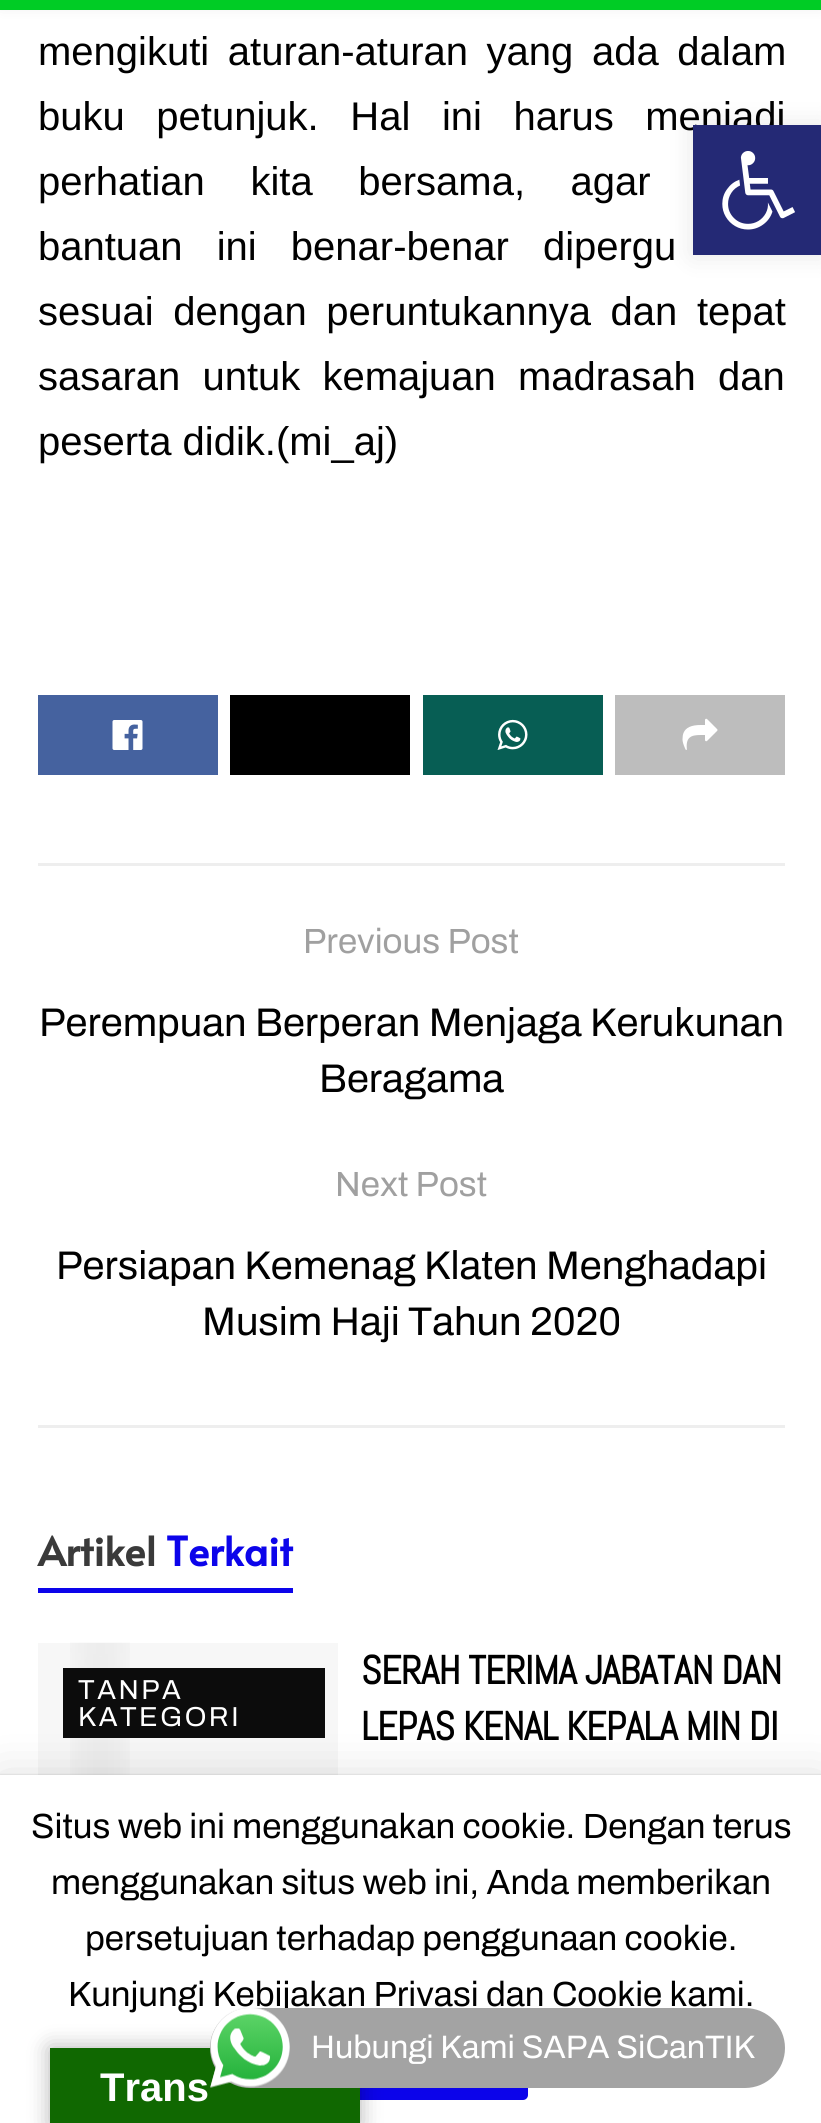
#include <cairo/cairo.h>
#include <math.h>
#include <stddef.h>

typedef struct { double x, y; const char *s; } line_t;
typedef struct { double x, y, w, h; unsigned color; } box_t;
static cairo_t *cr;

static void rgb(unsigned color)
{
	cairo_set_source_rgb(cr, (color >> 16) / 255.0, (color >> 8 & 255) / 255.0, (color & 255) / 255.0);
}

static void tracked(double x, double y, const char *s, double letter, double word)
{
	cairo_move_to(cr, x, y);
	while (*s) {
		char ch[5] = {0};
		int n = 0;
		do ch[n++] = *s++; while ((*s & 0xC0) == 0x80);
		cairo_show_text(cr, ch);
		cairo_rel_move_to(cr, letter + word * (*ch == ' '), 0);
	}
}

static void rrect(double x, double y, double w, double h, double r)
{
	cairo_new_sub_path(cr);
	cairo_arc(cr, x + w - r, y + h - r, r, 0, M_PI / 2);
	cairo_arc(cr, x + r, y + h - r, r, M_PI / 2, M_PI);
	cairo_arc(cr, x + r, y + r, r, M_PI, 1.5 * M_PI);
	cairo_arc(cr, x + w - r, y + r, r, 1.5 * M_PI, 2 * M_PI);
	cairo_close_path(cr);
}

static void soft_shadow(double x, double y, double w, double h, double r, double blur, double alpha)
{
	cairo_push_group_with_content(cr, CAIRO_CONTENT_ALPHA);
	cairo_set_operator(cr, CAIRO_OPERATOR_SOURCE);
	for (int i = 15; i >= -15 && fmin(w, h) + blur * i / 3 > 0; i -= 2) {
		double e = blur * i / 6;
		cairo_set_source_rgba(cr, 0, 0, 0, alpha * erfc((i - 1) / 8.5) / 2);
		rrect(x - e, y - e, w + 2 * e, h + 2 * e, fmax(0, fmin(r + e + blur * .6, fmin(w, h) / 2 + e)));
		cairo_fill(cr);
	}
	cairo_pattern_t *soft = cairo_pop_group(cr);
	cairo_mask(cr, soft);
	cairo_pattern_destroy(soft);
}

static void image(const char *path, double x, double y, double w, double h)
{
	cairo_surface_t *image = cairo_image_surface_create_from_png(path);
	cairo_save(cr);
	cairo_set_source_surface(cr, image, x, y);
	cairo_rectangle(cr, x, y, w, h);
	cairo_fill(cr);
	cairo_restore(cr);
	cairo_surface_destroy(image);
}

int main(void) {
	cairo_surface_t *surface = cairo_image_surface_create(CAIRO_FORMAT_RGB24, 821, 2123);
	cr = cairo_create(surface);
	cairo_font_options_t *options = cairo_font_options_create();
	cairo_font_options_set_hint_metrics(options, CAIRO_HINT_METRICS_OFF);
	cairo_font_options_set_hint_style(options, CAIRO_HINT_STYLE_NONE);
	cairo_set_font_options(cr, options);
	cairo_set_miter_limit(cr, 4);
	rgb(0xffffff);
	cairo_paint(cr);
	rgb(0x000000);
	soft_shadow(0, -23, 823, 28, 0, 7.5, 0.1);
	rgb(0x00cc25);
	cairo_rectangle(cr, 0, 0, 821, 10);
	cairo_fill(cr);
	rgb(0x45629f);
	cairo_rectangle(cr, 38, 695, 180, 80);
	cairo_fill(cr);
	image("img/1.png", 112, 720, 31, 30);
	rgb(0x000000);
	cairo_rectangle(cr, 230, 695, 180, 80);
	cairo_fill(cr);
	rgb(0x075e54);
	cairo_rectangle(cr, 423, 695, 180, 80);
	cairo_fill(cr);
	image("img/2.png", 497, 719, 31, 31);
	rgb(0xbdbdbd);
	cairo_rectangle(cr, 615, 695, 170, 80);
	cairo_fill(cr);
	image("img/3.png", 682, 718, 36, 32);
	{
		static const box_t items[] = {
			{38, 863, 747, 3, 0xeeeeee},
			{38, 1425, 747, 3, 0xeeeeee},
			{38, 1588, 255, 5, 0x0c04ea},
			{38, 1643, 300, 132, 0xf7f7f7},
		};
		for (size_t i = 0; i < sizeof items / sizeof *items; i++) {
			rgb(items[i].color);
			cairo_rectangle(cr, items[i].x, items[i].y, items[i].w, items[i].h);
			cairo_fill(cr);
		}
	}
	image("img/4.png", 70, 1642, 60, 133);
	rgb(0x0c0c0c);
	cairo_rectangle(cr, 63, 1668, 262, 70);
	cairo_fill(cr);
	rgb(0x000000);
	soft_shadow(693, 125, 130, 130, 0, 12.5, 0.1);
	soft_shadow(0, 1780, 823, 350, 0, 25, 0.15);
	soft_shadow(0, 1775, 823, 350, 0, 1, 0.2);
	rgb(0xffffff);
	cairo_rectangle(cr, 0, 1775, 821, 348);
	cairo_fill(cr);
	rgb(0x0c04ea);
	rrect(320, 2025, 208, 75, 5);
	cairo_fill(cr);
	rgb(0x000000);
	soft_shadow(50, 2048, 310, 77, 0, 11, 0.3);
	rgb(0x106801);
	cairo_rectangle(cr, 50, 2048, 310, 75);
	cairo_fill(cr);
	cairo_select_font_face(cr, "Arimo", CAIRO_FONT_SLANT_NORMAL, CAIRO_FONT_WEIGHT_NORMAL);
	cairo_set_font_size(cr, 40);
	rgb(0x000000);
	tracked(38, 65, "mengikuti aturan-aturan yang ada dalam", 0, 7.5);
	tracked(38, 130, "buku petunjuk. Hal ini harus menjadi", 0, 20.5);
	tracked(38, 195, "perhatian kita bersama, agar", 0, 34.5);
	tracked(38, 260, "bantuan ini benar-benar dipergu", 0, 23);
	tracked(38, 325, "sesuai dengan peruntukannya dan tepat", 0, 8.5);
	tracked(38, 390, "sasaran untuk kemajuan madrasah dan", 0, 11);
	cairo_move_to(cr, 38, 455);
	cairo_show_text(cr, "peserta didik.(mi_aj)");
	cairo_select_font_face(cr, "Archivo SemiBold", CAIRO_FONT_SLANT_NORMAL, CAIRO_FONT_WEIGHT_NORMAL);
	cairo_set_font_size(cr, 35);
	rgb(0xa0a0a0);
	cairo_move_to(cr, 303, 953);
	cairo_show_text(cr, "Previous Post");
	cairo_set_font_size(cr, 40);
	rgb(0x000000);
	cairo_move_to(cr, 39, 1036);
	cairo_show_text(cr, "Perempuan Berperan Menjaga Kerukunan");
	cairo_move_to(cr, 319, 1092);
	cairo_show_text(cr, "Beragama");
	cairo_set_font_size(cr, 35);
	rgb(0xa0a0a0);
	cairo_move_to(cr, 335, 1196);
	cairo_show_text(cr, "Next Post");
	cairo_set_font_size(cr, 40);
	rgb(0x000000);
	cairo_move_to(cr, 56, 1279);
	cairo_show_text(cr, "Persiapan Kemenag Klaten Menghadapi");
	cairo_move_to(cr, 202, 1335);
	cairo_show_text(cr, "Musim Haji Tahun 2020");
	cairo_select_font_face(cr, "Alata", CAIRO_FONT_SLANT_NORMAL, CAIRO_FONT_WEIGHT_BOLD);
	rgb(0x3a3a3a);
	cairo_move_to(cr, 38, 1566);
	cairo_show_text(cr, "Artikel");
	rgb(0x0c04ea);
	cairo_move_to(cr, 166, 1566);
	cairo_show_text(cr, "Terkait");
	cairo_select_font_face(cr, "Archivo SemiBold", CAIRO_FONT_SLANT_NORMAL, CAIRO_FONT_WEIGHT_NORMAL);
	cairo_set_font_size(cr, 27.5);
	rgb(0xffffff);
	tracked(78, 1699, "TANPA", 2.5, 0);
	tracked(78, 1726, "KATEGORI", 2.5, 0);
	cairo_select_font_face(cr, "Abel", CAIRO_FONT_SLANT_NORMAL, CAIRO_FONT_WEIGHT_BOLD);
	cairo_set_font_size(cr, 40);
	rgb(0x000000);
	tracked(361, 1684, "SERAH TERIMA JABATAN DAN", -0.8, 0);
	tracked(361, 1740, "LEPAS KENAL KEPALA MIN DI", -0.8, 0);
	rgb(0x242975);
	cairo_rectangle(cr, 693, 125, 128, 130);
	cairo_fill(cr);
	image("img/5.png", 722, 151, 73, 79);
	cairo_select_font_face(cr, "Archivo SemiBold", CAIRO_FONT_SLANT_NORMAL, CAIRO_FONT_WEIGHT_NORMAL);
	cairo_set_font_size(cr, 35);
	rgb(0x000000);
	{
		static const line_t items[] = {
			{31, 1838, "Situs web ini menggunakan cookie. Dengan terus"},
			{51, 1894, "menggunakan situs web ini, Anda memberikan"},
			{85, 1950, "persetujuan terhadap penggunaan cookie."},
			{68, 2006, "Kunjungi Kebijakan Privasi dan Cookie kami."},
		};
		for (size_t i = 0; i < sizeof items / sizeof *items; i++) {
			cairo_move_to(cr, items[i].x, items[i].y);
			cairo_show_text(cr, items[i].s);
		}
	}
	rgb(0xa3a3a3);
	rrect(210, 2008, 575, 80, 40);
	cairo_fill(cr);
	image("img/6.png", 210, 2007, 80, 81);
	cairo_set_font_size(cr, 32.5);
	rgb(0xffffff);
	cairo_move_to(cr, 311, 2058);
	cairo_show_text(cr, "Hubungi Kami SAPA SiCanTIK");
	cairo_select_font_face(cr, "Liberation Sans", CAIRO_FONT_SLANT_NORMAL, CAIRO_FONT_WEIGHT_BOLD);
	cairo_set_font_size(cr, 40);
	cairo_move_to(cr, 100, 2101);
	cairo_show_text(cr, "Trans");
	cairo_surface_write_to_png(surface, "page.png");
	cairo_font_options_destroy(options);
	cairo_destroy(cr);
	cairo_surface_destroy(surface);
	return 0;
}
